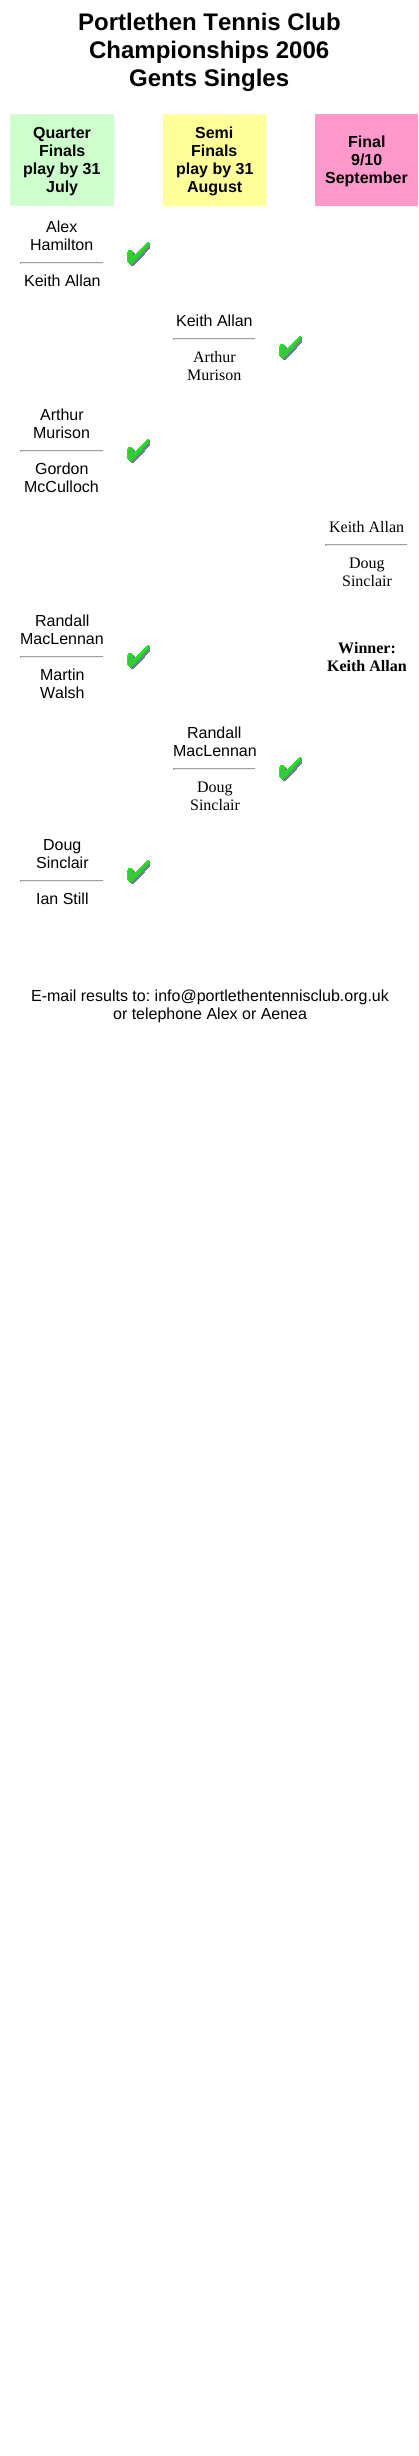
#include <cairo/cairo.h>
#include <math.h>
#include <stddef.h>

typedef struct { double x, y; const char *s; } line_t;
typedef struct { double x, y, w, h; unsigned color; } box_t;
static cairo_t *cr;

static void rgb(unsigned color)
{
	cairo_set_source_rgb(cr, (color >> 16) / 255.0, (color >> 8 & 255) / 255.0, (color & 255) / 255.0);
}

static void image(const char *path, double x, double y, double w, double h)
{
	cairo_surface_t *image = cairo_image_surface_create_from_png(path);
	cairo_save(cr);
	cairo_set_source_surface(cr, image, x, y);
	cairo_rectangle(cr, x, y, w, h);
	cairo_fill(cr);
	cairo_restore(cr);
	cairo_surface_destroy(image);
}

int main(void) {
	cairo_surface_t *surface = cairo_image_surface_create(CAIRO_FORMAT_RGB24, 419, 2456);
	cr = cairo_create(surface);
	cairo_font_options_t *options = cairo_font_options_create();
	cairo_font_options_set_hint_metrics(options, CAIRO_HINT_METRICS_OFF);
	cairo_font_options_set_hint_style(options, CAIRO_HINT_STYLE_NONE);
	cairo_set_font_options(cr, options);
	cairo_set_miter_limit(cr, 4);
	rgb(0xffffff);
	cairo_paint(cr);
	{
		static const box_t items[] = {
			{10, 114, 104, 92, 0xccffcc},
			{163, 114, 103, 92, 0xffff99},
			{315, 114, 103, 92, 0xff99cc},
			{20, 262, 84, 1, 0x9f9f9f},
			{103, 262, 1, 2, 0xeeeeee},
			{20, 263, 84, 1, 0xeeeeee},
			{20, 262, 1, 2, 0x9f9f9f},
		};
		for (size_t i = 0; i < sizeof items / sizeof *items; i++) {
			rgb(items[i].color);
			cairo_rectangle(cr, items[i].x, items[i].y, items[i].w, items[i].h);
			cairo_fill(cr);
		}
	}
	image("img/1.png", 127, 242, 23, 24);
	{
		static const box_t items[] = {
			{173, 338, 83, 1, 0x9f9f9f},
			{255, 338, 1, 2, 0xeeeeee},
			{173, 339, 83, 1, 0xeeeeee},
			{173, 338, 1, 2, 0x9f9f9f},
		};
		for (size_t i = 0; i < sizeof items / sizeof *items; i++) {
			rgb(items[i].color);
			cairo_rectangle(cr, items[i].x, items[i].y, items[i].w, items[i].h);
			cairo_fill(cr);
		}
	}
	image("img/1.png", 279, 336, 23, 24);
	{
		static const box_t items[] = {
			{20, 450, 84, 1, 0x9f9f9f},
			{103, 450, 1, 2, 0xeeeeee},
			{20, 451, 84, 1, 0xeeeeee},
			{20, 450, 1, 2, 0x9f9f9f},
		};
		for (size_t i = 0; i < sizeof items / sizeof *items; i++) {
			rgb(items[i].color);
			cairo_rectangle(cr, items[i].x, items[i].y, items[i].w, items[i].h);
			cairo_fill(cr);
		}
	}
	image("img/1.png", 127, 439, 23, 24);
	{
		static const box_t items[] = {
			{325, 544, 83, 1, 0x9f9f9f},
			{407, 544, 1, 2, 0xeeeeee},
			{325, 545, 83, 1, 0xeeeeee},
			{325, 544, 1, 2, 0x9f9f9f},
			{20, 656, 84, 1, 0x9f9f9f},
			{103, 656, 1, 2, 0xeeeeee},
			{20, 657, 84, 1, 0xeeeeee},
			{20, 656, 1, 2, 0x9f9f9f},
		};
		for (size_t i = 0; i < sizeof items / sizeof *items; i++) {
			rgb(items[i].color);
			cairo_rectangle(cr, items[i].x, items[i].y, items[i].w, items[i].h);
			cairo_fill(cr);
		}
	}
	image("img/1.png", 127, 645, 23, 24);
	{
		static const box_t items[] = {
			{173, 768, 83, 1, 0x9f9f9f},
			{255, 768, 1, 2, 0xeeeeee},
			{173, 769, 83, 1, 0xeeeeee},
			{173, 768, 1, 2, 0x9f9f9f},
		};
		for (size_t i = 0; i < sizeof items / sizeof *items; i++) {
			rgb(items[i].color);
			cairo_rectangle(cr, items[i].x, items[i].y, items[i].w, items[i].h);
			cairo_fill(cr);
		}
	}
	image("img/1.png", 279, 757, 23, 24);
	{
		static const box_t items[] = {
			{20, 880, 84, 1, 0x9f9f9f},
			{103, 880, 1, 2, 0xeeeeee},
			{20, 881, 84, 1, 0xeeeeee},
			{20, 880, 1, 2, 0x9f9f9f},
		};
		for (size_t i = 0; i < sizeof items / sizeof *items; i++) {
			rgb(items[i].color);
			cairo_rectangle(cr, items[i].x, items[i].y, items[i].w, items[i].h);
			cairo_fill(cr);
		}
	}
	image("img/1.png", 127, 860, 23, 24);
	cairo_select_font_face(cr, "Liberation Sans", CAIRO_FONT_SLANT_NORMAL, CAIRO_FONT_WEIGHT_BOLD);
	cairo_set_font_size(cr, 24);
	rgb(0x000000);
	{
		static const line_t items[] = {
			{78, 30, "Portlethen Tennis Club"},
			{89, 58, "Championships 2006"},
			{129, 86, "Gents Singles"},
		};
		for (size_t i = 0; i < sizeof items / sizeof *items; i++) {
			cairo_move_to(cr, items[i].x, items[i].y);
			cairo_show_text(cr, items[i].s);
		}
	}
	cairo_set_font_size(cr, 16);
	{
		static const line_t items[] = {
			{33, 138, "Quarter"},
			{39, 156, "Finals"},
			{23, 174, "play by 31"},
			{46, 192, "July"},
			{195, 138, "Semi"},
			{191, 156, "Finals"},
			{176, 174, "play by 31"},
			{187, 192, "August"},
			{348, 147, "Final"},
			{351, 165, "9/10"},
			{325, 183, "September"},
		};
		for (size_t i = 0; i < sizeof items / sizeof *items; i++) {
			cairo_move_to(cr, items[i].x, items[i].y);
			cairo_show_text(cr, items[i].s);
		}
	}
	cairo_select_font_face(cr, "Liberation Sans", CAIRO_FONT_SLANT_NORMAL, CAIRO_FONT_WEIGHT_NORMAL);
	{
		static const line_t items[] = {
			{46, 232, "Alex"},
			{30, 250, "Hamilton"},
			{24, 286, "Keith Allan"},
			{176, 326, "Keith Allan"},
		};
		for (size_t i = 0; i < sizeof items / sizeof *items; i++) {
			cairo_move_to(cr, items[i].x, items[i].y);
			cairo_show_text(cr, items[i].s);
		}
	}
	cairo_select_font_face(cr, "Liberation Serif", CAIRO_FONT_SLANT_NORMAL, CAIRO_FONT_WEIGHT_NORMAL);
	cairo_move_to(cr, 193, 362);
	cairo_show_text(cr, "Arthur");
	cairo_move_to(cr, 187, 380);
	cairo_show_text(cr, "Murison");
	cairo_select_font_face(cr, "Liberation Sans", CAIRO_FONT_SLANT_NORMAL, CAIRO_FONT_WEIGHT_NORMAL);
	{
		static const line_t items[] = {
			{40, 420, "Arthur"},
			{33, 438, "Murison"},
			{35, 474, "Gordon"},
			{24, 492, "McCulloch"},
		};
		for (size_t i = 0; i < sizeof items / sizeof *items; i++) {
			cairo_move_to(cr, items[i].x, items[i].y);
			cairo_show_text(cr, items[i].s);
		}
	}
	cairo_select_font_face(cr, "Liberation Serif", CAIRO_FONT_SLANT_NORMAL, CAIRO_FONT_WEIGHT_NORMAL);
	{
		static const line_t items[] = {
			{329, 532, "Keith Allan"},
			{349, 568, "Doug"},
			{342, 586, "Sinclair"},
		};
		for (size_t i = 0; i < sizeof items / sizeof *items; i++) {
			cairo_move_to(cr, items[i].x, items[i].y);
			cairo_show_text(cr, items[i].s);
		}
	}
	cairo_select_font_face(cr, "Liberation Sans", CAIRO_FONT_SLANT_NORMAL, CAIRO_FONT_WEIGHT_NORMAL);
	{
		static const line_t items[] = {
			{35, 626, "Randall"},
			{20, 644, "MacLennan"},
			{40, 680, "Martin"},
			{40, 698, "Walsh"},
		};
		for (size_t i = 0; i < sizeof items / sizeof *items; i++) {
			cairo_move_to(cr, items[i].x, items[i].y);
			cairo_show_text(cr, items[i].s);
		}
	}
	cairo_select_font_face(cr, "Liberation Serif", CAIRO_FONT_SLANT_NORMAL, CAIRO_FONT_WEIGHT_BOLD);
	cairo_move_to(cr, 338, 653);
	cairo_show_text(cr, "Winner:");
	cairo_move_to(cr, 327, 671);
	cairo_show_text(cr, "Keith Allan");
	cairo_select_font_face(cr, "Liberation Sans", CAIRO_FONT_SLANT_NORMAL, CAIRO_FONT_WEIGHT_NORMAL);
	cairo_move_to(cr, 187, 738);
	cairo_show_text(cr, "Randall");
	cairo_move_to(cr, 173, 756);
	cairo_show_text(cr, "MacLennan");
	cairo_select_font_face(cr, "Liberation Serif", CAIRO_FONT_SLANT_NORMAL, CAIRO_FONT_WEIGHT_NORMAL);
	cairo_move_to(cr, 197, 792);
	cairo_show_text(cr, "Doug");
	cairo_move_to(cr, 190, 810);
	cairo_show_text(cr, "Sinclair");
	cairo_select_font_face(cr, "Liberation Sans", CAIRO_FONT_SLANT_NORMAL, CAIRO_FONT_WEIGHT_NORMAL);
	{
		static const line_t items[] = {
			{43, 850, "Doug"},
			{36, 868, "Sinclair"},
			{36, 904, "Ian Still"},
			{31, 1001, "E-mail results to: info@portlethentennisclub.org.uk"},
			{113, 1019, "or telephone Alex or Aenea"},
		};
		for (size_t i = 0; i < sizeof items / sizeof *items; i++) {
			cairo_move_to(cr, items[i].x, items[i].y);
			cairo_show_text(cr, items[i].s);
		}
	}
	cairo_surface_write_to_png(surface, "page.png");
	cairo_font_options_destroy(options);
	cairo_destroy(cr);
	cairo_surface_destroy(surface);
	return 0;
}
